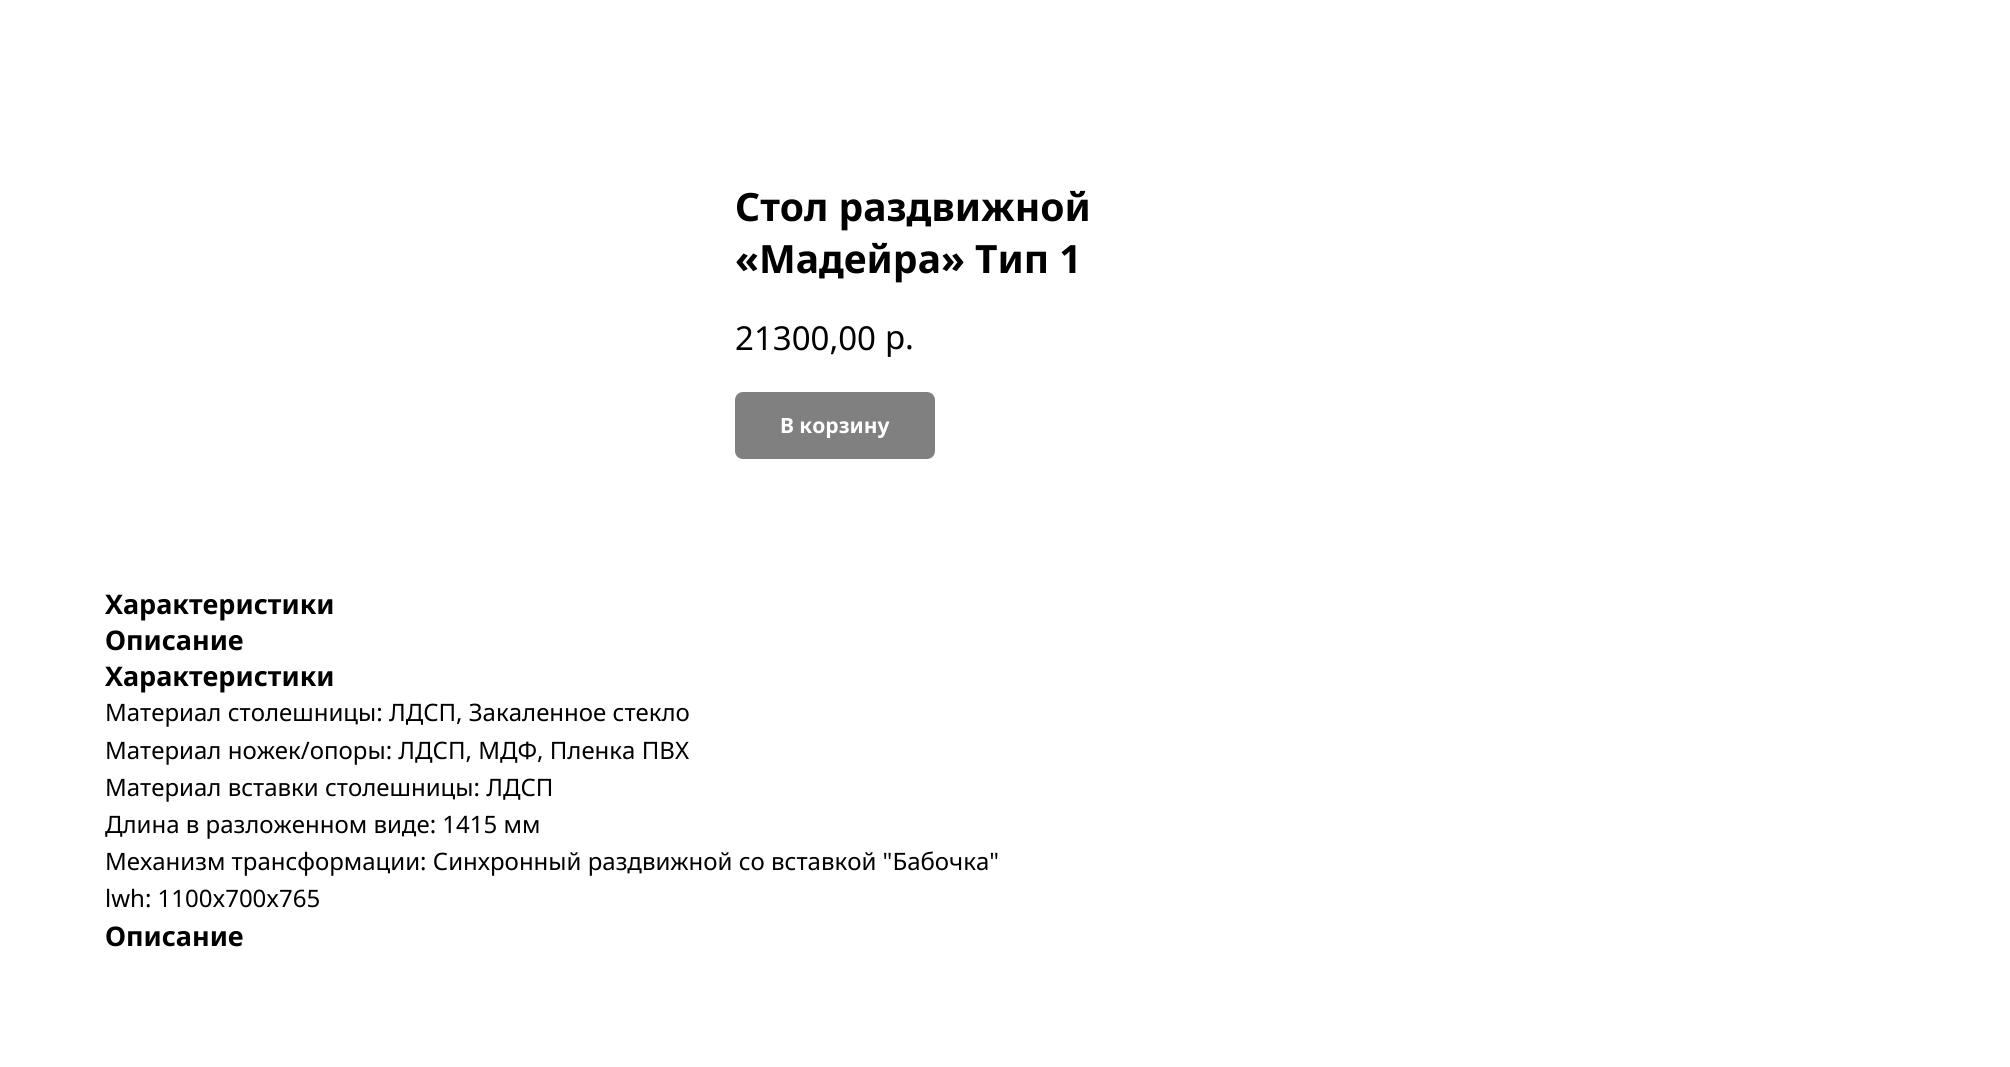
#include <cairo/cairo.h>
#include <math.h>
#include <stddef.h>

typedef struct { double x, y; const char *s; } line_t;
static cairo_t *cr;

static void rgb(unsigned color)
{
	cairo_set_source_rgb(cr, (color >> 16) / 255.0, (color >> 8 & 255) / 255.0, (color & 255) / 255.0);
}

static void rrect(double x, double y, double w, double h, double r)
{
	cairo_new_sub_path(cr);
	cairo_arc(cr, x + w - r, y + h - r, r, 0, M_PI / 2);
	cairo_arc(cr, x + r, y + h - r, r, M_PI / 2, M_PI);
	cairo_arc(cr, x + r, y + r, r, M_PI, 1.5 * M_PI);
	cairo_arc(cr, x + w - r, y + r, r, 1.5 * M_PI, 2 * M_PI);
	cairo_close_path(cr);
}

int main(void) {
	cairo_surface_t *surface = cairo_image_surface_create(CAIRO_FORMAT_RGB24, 2010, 1067);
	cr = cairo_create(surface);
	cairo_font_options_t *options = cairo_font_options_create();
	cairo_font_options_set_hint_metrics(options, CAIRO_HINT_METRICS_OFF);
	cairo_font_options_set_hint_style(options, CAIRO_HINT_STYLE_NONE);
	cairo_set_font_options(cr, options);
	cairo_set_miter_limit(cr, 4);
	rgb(0xffffff);
	cairo_paint(cr);
	rgb(0x808080);
	rrect(735, 392, 200, 67, 8);
	cairo_fill(cr);
	cairo_select_font_face(cr, "Noto Sans", CAIRO_FONT_SLANT_NORMAL, CAIRO_FONT_WEIGHT_BOLD);
	cairo_set_font_size(cr, 39);
	rgb(0x000000);
	cairo_move_to(cr, 735, 221);
	cairo_show_text(cr, "Стол раздвижной");
	cairo_move_to(cr, 735, 273);
	cairo_show_text(cr, "«Мадейра» Тип 1");
	cairo_select_font_face(cr, "Noto Sans", CAIRO_FONT_SLANT_NORMAL, CAIRO_FONT_WEIGHT_NORMAL);
	cairo_set_font_size(cr, 33);
	cairo_move_to(cr, 735, 350);
	cairo_show_text(cr, "21300,00");
	cairo_move_to(cr, 885, 349);
	cairo_show_text(cr, "р.");
	cairo_select_font_face(cr, "Noto Sans", CAIRO_FONT_SLANT_NORMAL, CAIRO_FONT_WEIGHT_BOLD);
	cairo_set_font_size(cr, 21);
	rgb(0xffffff);
	cairo_move_to(cr, 780, 433);
	cairo_show_text(cr, "В корзину");
	cairo_set_font_size(cr, 27);
	rgb(0x000000);
	{
		static const line_t items[] = {
			{105, 614, "Характеристики"},
			{105, 650, "Описание"},
			{105, 686, "Характеристики"},
		};
		for (size_t i = 0; i < sizeof items / sizeof *items; i++) {
			cairo_move_to(cr, items[i].x, items[i].y);
			cairo_show_text(cr, items[i].s);
		}
	}
	cairo_select_font_face(cr, "Noto Sans", CAIRO_FONT_SLANT_NORMAL, CAIRO_FONT_WEIGHT_NORMAL);
	cairo_set_font_size(cr, 24);
	{
		static const line_t items[] = {
			{105, 721, "Материал столешницы: ЛДСП, Закаленное стекло"},
			{105, 759, "Материал ножек/опоры: ЛДСП, МДФ, Пленка ПВХ"},
			{105, 796, "Материал вставки столешницы: ЛДСП"},
			{105, 833, "Длина в разложенном виде: 1415 мм"},
			{105, 870, "Механизм трансформации: Синхронный раздвижной со вставкой \"Бабочка\""},
			{105, 907, "lwh: 1100x700x765"},
		};
		for (size_t i = 0; i < sizeof items / sizeof *items; i++) {
			cairo_move_to(cr, items[i].x, items[i].y);
			cairo_show_text(cr, items[i].s);
		}
	}
	cairo_select_font_face(cr, "Noto Sans", CAIRO_FONT_SLANT_NORMAL, CAIRO_FONT_WEIGHT_BOLD);
	cairo_set_font_size(cr, 27);
	cairo_move_to(cr, 105, 946);
	cairo_show_text(cr, "Описание");
	cairo_surface_write_to_png(surface, "page.png");
	cairo_font_options_destroy(options);
	cairo_destroy(cr);
	cairo_surface_destroy(surface);
	return 0;
}
